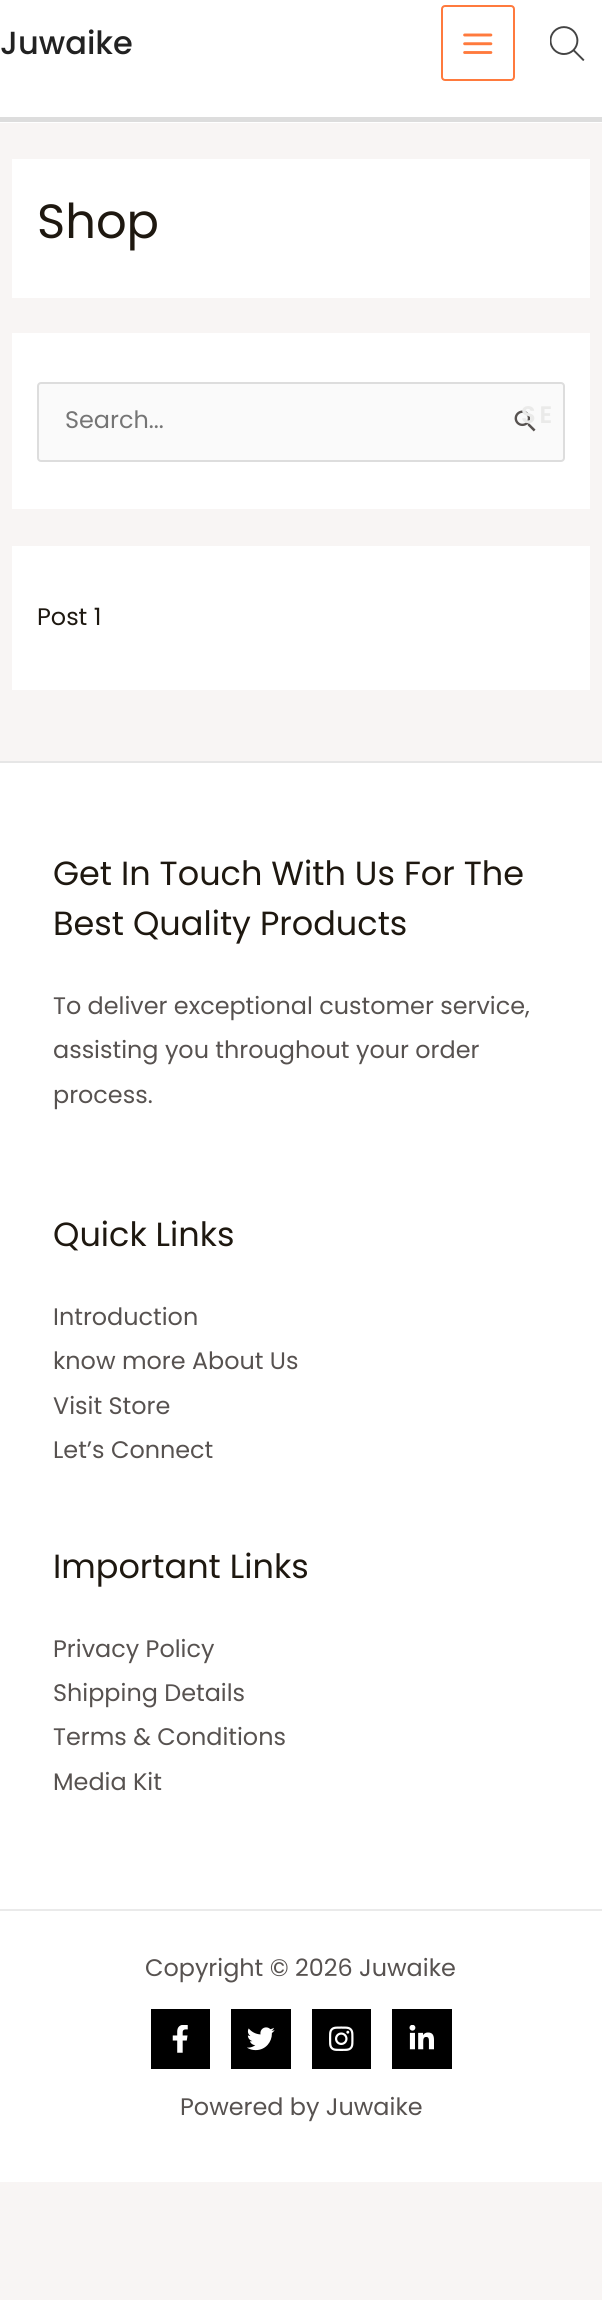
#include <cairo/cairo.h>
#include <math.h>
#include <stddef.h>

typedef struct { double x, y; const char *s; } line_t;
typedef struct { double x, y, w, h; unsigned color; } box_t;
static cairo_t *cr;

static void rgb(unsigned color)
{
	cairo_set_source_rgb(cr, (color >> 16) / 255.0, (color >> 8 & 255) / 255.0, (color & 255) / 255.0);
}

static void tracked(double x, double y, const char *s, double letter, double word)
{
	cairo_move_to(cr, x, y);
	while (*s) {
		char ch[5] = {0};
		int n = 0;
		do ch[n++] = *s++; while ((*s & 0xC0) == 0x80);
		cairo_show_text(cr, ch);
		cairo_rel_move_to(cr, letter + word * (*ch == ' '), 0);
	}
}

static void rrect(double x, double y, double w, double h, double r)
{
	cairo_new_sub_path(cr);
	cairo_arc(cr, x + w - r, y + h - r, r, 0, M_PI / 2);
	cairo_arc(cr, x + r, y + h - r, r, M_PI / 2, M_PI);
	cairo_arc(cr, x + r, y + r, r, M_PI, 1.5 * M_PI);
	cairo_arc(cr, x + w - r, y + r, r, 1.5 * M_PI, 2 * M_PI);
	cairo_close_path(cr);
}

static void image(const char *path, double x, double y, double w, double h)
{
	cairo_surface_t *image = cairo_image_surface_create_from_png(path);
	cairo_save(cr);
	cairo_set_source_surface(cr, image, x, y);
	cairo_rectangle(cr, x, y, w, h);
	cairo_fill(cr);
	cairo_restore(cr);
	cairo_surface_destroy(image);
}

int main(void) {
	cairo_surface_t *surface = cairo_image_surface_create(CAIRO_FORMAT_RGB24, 602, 2300);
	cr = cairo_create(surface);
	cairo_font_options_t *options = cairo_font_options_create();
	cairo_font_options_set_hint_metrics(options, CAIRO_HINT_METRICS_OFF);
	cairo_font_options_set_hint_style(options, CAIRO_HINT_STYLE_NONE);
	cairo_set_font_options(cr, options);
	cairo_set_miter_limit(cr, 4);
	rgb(0xf8f5f4);
	cairo_paint(cr);
	rgb(0xffffff);
	cairo_rectangle(cr, 0, 0, 602, 123);
	cairo_fill(cr);
	rgb(0xdddddd);
	cairo_rectangle(cr, 0, 117, 602, 5);
	cairo_fill(cr);
	rrect(442, 6, 72, 74, 3);
	rgb(0xff7a3d);
	cairo_stroke(cr);
	image("img/1.png", 463, 33, 30, 21);
	image("img/2.png", 550, 26, 35, 35);
	rgb(0xffffff);
	cairo_rectangle(cr, 12, 159, 578, 139);
	cairo_fill(cr);
	cairo_rectangle(cr, 12, 333, 578, 176);
	cairo_fill(cr);
	rgb(0xfafafa);
	rrect(38, 383, 526, 78, 3);
	cairo_fill_preserve(cr);
	rgb(0xdddddd);
	cairo_stroke(cr);
	image("img/3.png", 514, 410, 22, 22);
	{
		static const box_t items[] = {
			{12, 546, 578, 144, 0xffffff},
			{0, 763, 602, 1419, 0xffffff},
			{0, 761, 602, 2, 0xe6e6e6},
			{0, 1909, 602, 2, 0xeaeaea},
			{151, 2009, 59, 60, 0x000000},
		};
		for (size_t i = 0; i < sizeof items / sizeof *items; i++) {
			rgb(items[i].color);
			cairo_rectangle(cr, items[i].x, items[i].y, items[i].w, items[i].h);
			cairo_fill(cr);
		}
	}
	image("img/4.png", 172, 2025, 16, 28);
	cairo_rectangle(cr, 231, 2009, 60, 60);
	cairo_fill(cr);
	image("img/5.png", 247, 2027, 28, 24);
	cairo_rectangle(cr, 312, 2009, 59, 60);
	cairo_fill(cr);
	image("img/6.png", 329, 2026, 25, 25);
	cairo_rectangle(cr, 392, 2009, 60, 60);
	cairo_fill(cr);
	image("img/7.png", 409, 2025, 25, 25);
	cairo_select_font_face(cr, "Poppins Medium", CAIRO_FONT_SLANT_NORMAL, CAIRO_FONT_WEIGHT_NORMAL);
	cairo_set_font_size(cr, 32);
	rgb(0x222222);
	cairo_move_to(cr, 0, 54);
	cairo_show_text(cr, "Juwaike");
	cairo_select_font_face(cr, "Poppins", CAIRO_FONT_SLANT_NORMAL, CAIRO_FONT_WEIGHT_NORMAL);
	cairo_set_font_size(cr, 48);
	rgb(0x1e1810);
	cairo_move_to(cr, 37, 238);
	cairo_show_text(cr, "Shop");
	cairo_set_font_size(cr, 23.9);
	rgb(0x757575);
	cairo_move_to(cr, 65, 428);
	cairo_show_text(cr, "Search...");
	cairo_select_font_face(cr, "Poppins SemiBold", CAIRO_FONT_SLANT_NORMAL, CAIRO_FONT_WEIGHT_NORMAL);
	rgb(0xeaeae9);
	tracked(521, 423, "SE", 4, 0);
	cairo_select_font_face(cr, "Poppins", CAIRO_FONT_SLANT_NORMAL, CAIRO_FONT_WEIGHT_NORMAL);
	rgb(0x1e1810);
	cairo_move_to(cr, 37, 625);
	cairo_show_text(cr, "Post 1");
	cairo_set_font_size(cr, 33.5);
	cairo_move_to(cr, 53, 885);
	cairo_show_text(cr, "Get In Touch With Us For The");
	cairo_move_to(cr, 53, 935);
	cairo_show_text(cr, "Best Quality Products");
	cairo_set_font_size(cr, 23.9);
	rgb(0x575250);
	{
		static const line_t items[] = {
			{53, 1014, "To deliver exceptional customer service,"},
			{53, 1058, "assisting you throughout your order"},
			{53, 1103, "process."},
		};
		for (size_t i = 0; i < sizeof items / sizeof *items; i++) {
			cairo_move_to(cr, items[i].x, items[i].y);
			cairo_show_text(cr, items[i].s);
		}
	}
	cairo_set_font_size(cr, 33.5);
	rgb(0x1e1810);
	cairo_move_to(cr, 53, 1246);
	cairo_show_text(cr, "Quick Links");
	cairo_set_font_size(cr, 23.9);
	rgb(0x575250);
	{
		static const line_t items[] = {
			{53, 1325, "Introduction"},
			{53, 1369, "know more About Us"},
			{53, 1414, "Visit Store"},
			{53, 1458, "Let’s Connect"},
		};
		for (size_t i = 0; i < sizeof items / sizeof *items; i++) {
			cairo_move_to(cr, items[i].x, items[i].y);
			cairo_show_text(cr, items[i].s);
		}
	}
	cairo_set_font_size(cr, 33.5);
	rgb(0x1e1810);
	cairo_move_to(cr, 53, 1578);
	cairo_show_text(cr, "Important Links");
	cairo_set_font_size(cr, 23.9);
	rgb(0x575250);
	{
		static const line_t items[] = {
			{53, 1657, "Privacy Policy"},
			{53, 1701, "Shipping Details"},
			{53, 1745, "Terms & Conditions"},
			{53, 1790, "Media Kit"},
			{145, 1976, "Copyright © 2026 Juwaike"},
			{180, 2115, "Powered by Juwaike"},
		};
		for (size_t i = 0; i < sizeof items / sizeof *items; i++) {
			cairo_move_to(cr, items[i].x, items[i].y);
			cairo_show_text(cr, items[i].s);
		}
	}
	cairo_surface_write_to_png(surface, "page.png");
	cairo_font_options_destroy(options);
	cairo_destroy(cr);
	cairo_surface_destroy(surface);
	return 0;
}
